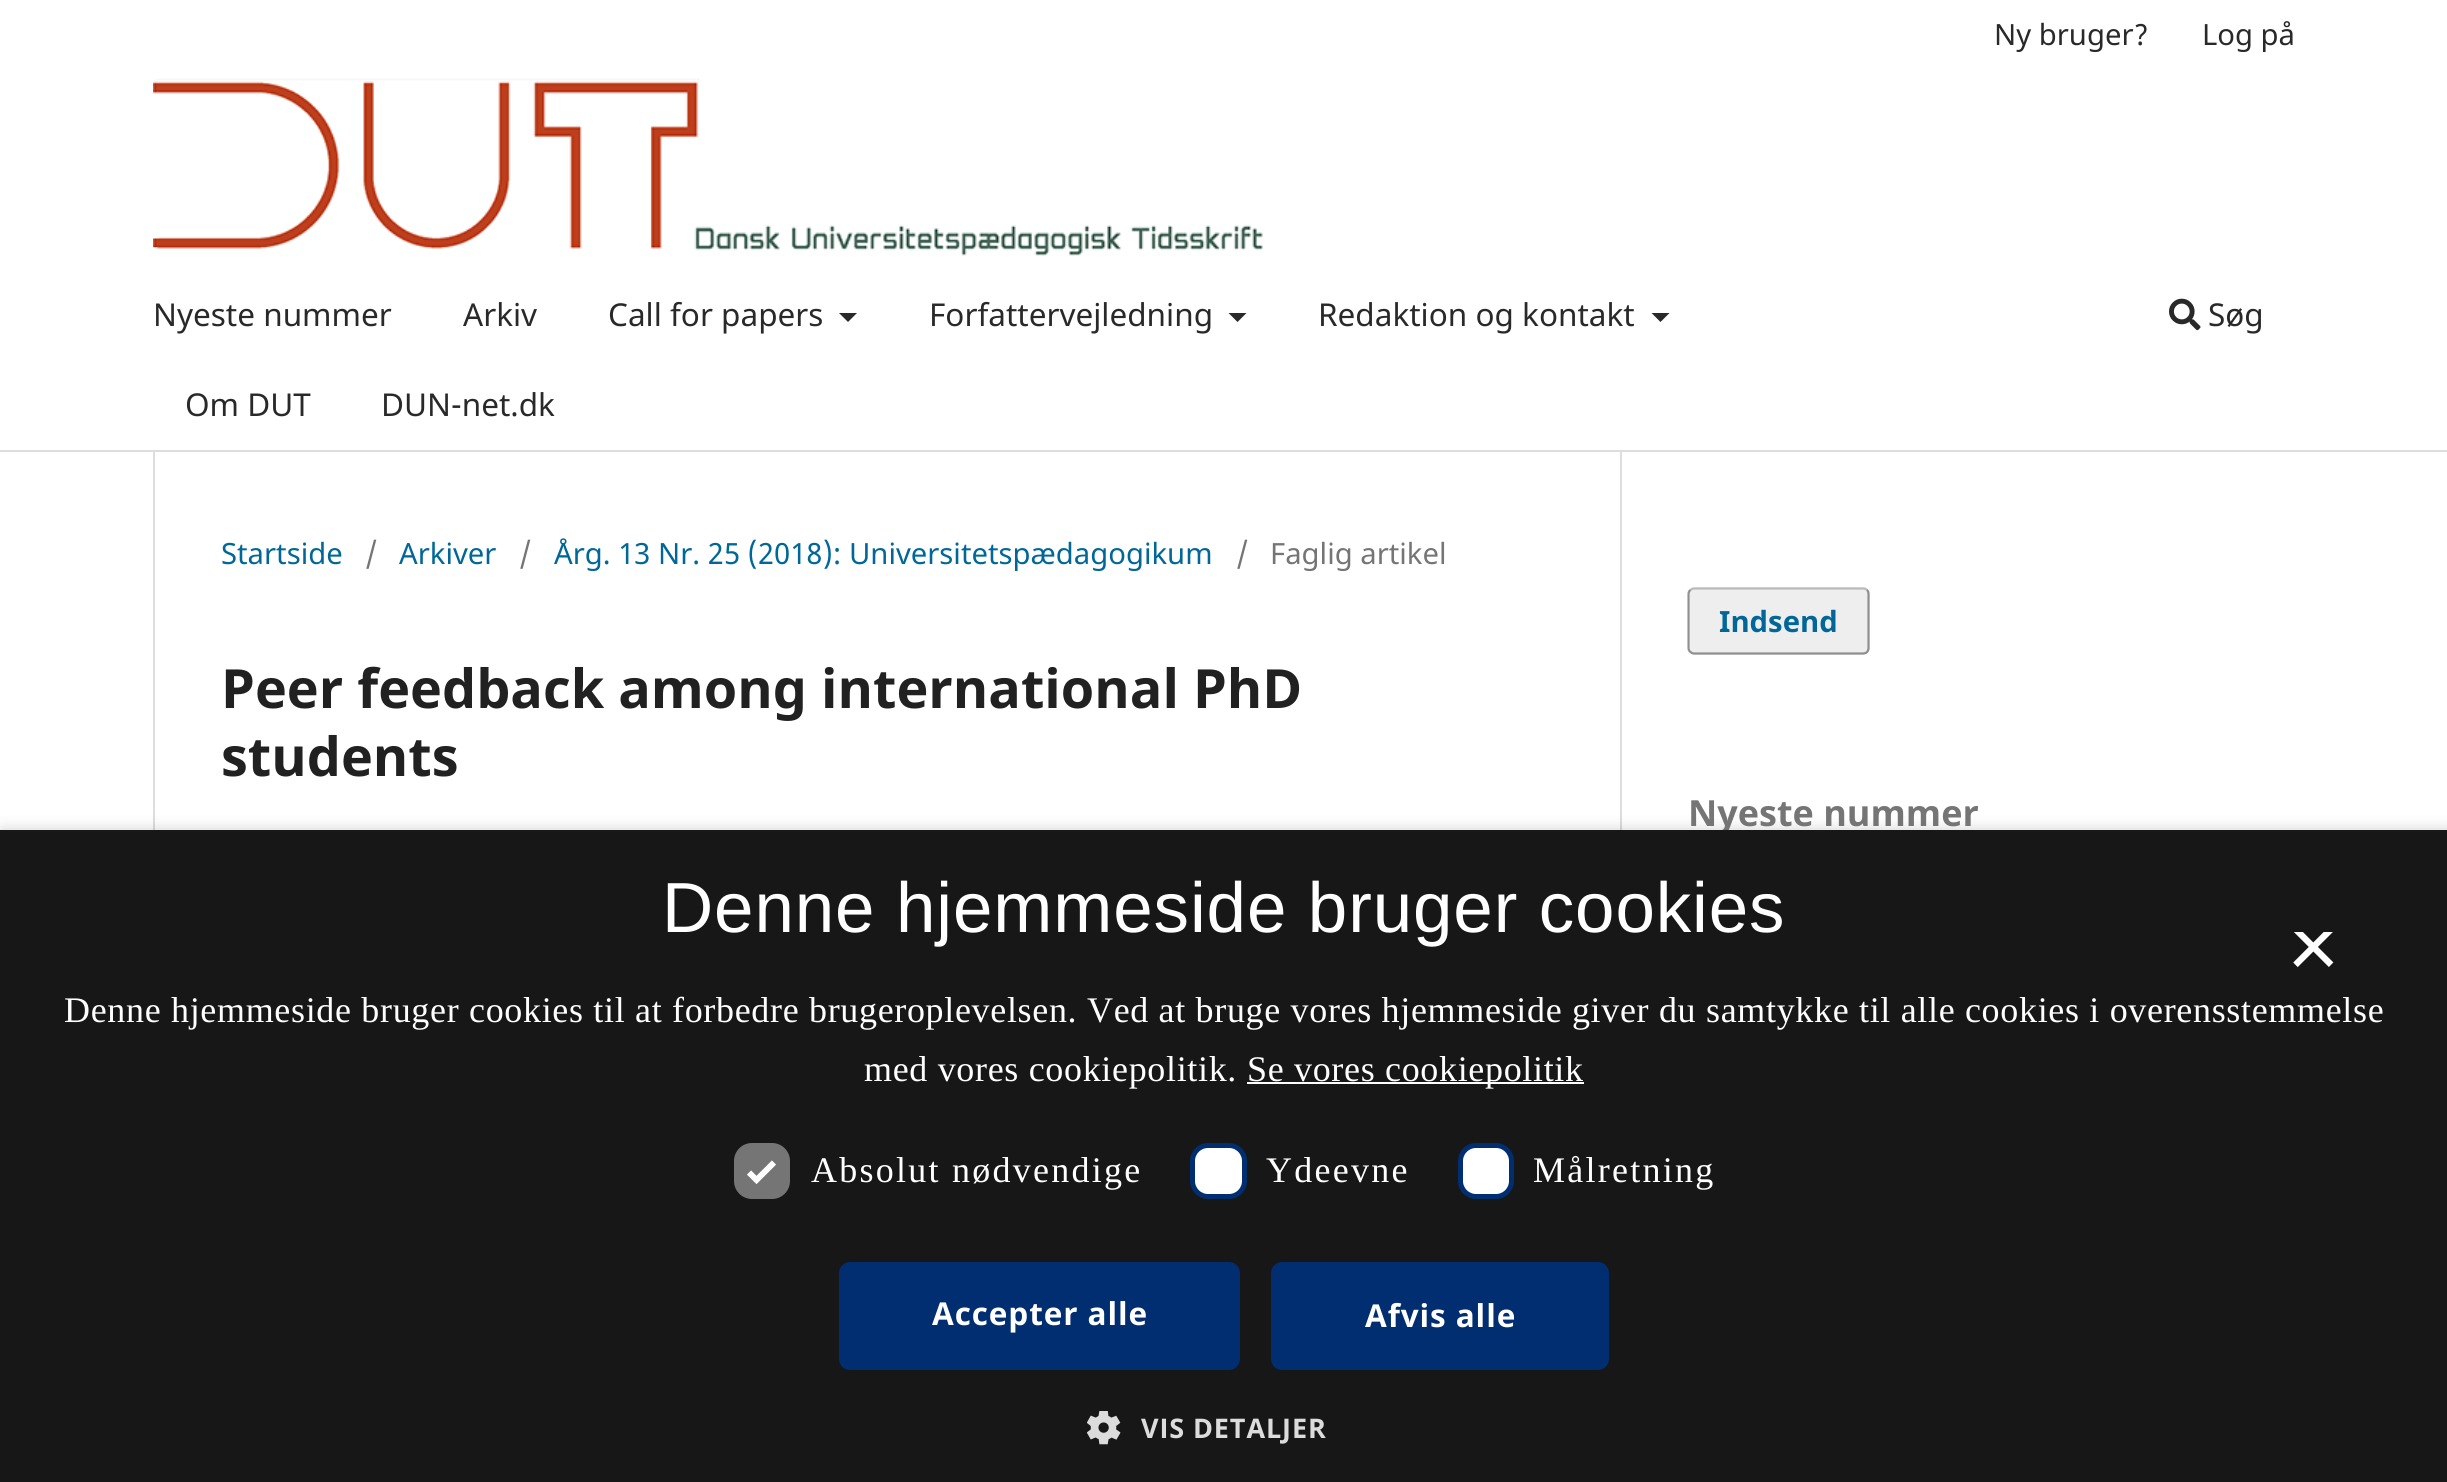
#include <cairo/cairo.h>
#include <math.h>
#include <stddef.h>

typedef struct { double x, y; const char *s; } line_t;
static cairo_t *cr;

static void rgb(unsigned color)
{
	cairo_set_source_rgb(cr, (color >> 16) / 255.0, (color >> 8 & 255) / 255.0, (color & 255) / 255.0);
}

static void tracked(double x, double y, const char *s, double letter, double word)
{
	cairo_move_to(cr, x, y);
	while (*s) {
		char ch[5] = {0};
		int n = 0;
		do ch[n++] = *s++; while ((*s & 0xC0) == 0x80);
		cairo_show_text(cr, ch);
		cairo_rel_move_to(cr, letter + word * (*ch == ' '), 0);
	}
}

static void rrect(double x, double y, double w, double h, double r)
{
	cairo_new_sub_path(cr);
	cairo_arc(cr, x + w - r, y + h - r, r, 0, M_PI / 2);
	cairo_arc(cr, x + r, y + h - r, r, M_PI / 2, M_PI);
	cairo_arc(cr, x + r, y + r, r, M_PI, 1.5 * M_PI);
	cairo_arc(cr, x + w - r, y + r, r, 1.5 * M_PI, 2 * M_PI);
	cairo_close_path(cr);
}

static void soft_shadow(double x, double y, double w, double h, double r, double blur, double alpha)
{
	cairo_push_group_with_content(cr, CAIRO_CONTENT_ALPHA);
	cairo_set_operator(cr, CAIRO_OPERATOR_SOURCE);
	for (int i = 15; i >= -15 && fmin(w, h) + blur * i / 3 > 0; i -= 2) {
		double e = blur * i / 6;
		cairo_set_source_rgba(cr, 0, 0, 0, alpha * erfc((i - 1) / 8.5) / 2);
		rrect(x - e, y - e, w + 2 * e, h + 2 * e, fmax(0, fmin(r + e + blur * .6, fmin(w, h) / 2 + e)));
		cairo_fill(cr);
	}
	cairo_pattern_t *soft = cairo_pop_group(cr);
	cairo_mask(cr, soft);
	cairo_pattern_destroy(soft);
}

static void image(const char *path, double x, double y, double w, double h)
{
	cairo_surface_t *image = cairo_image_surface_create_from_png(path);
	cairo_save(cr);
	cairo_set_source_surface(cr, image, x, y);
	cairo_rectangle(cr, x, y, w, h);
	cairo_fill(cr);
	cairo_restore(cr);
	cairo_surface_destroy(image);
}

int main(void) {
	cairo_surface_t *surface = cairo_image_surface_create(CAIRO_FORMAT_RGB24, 2447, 1482);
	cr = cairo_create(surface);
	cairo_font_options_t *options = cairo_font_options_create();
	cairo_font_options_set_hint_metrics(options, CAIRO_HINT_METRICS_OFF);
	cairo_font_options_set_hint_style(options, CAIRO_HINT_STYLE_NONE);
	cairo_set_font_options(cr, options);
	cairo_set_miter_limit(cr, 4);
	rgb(0xffffff);
	cairo_paint(cr);
	rgb(0xdddddd);
	cairo_rectangle(cr, 0, 450, 2447, 2);
	cairo_fill(cr);
	rgb(0x292929);
	cairo_new_path(cr);
	cairo_move_to(cr, 839, 313);
	cairo_line_to(cr, 857, 313);
	cairo_line_to(cr, 848, 322);
	cairo_close_path(cr);
	cairo_fill(cr);
	cairo_new_path(cr);
	cairo_move_to(cr, 1228.5, 313);
	cairo_line_to(cr, 1246.5, 313);
	cairo_line_to(cr, 1237.5, 322);
	cairo_close_path(cr);
	cairo_fill(cr);
	cairo_new_path(cr);
	cairo_move_to(cr, 1651.5, 313);
	cairo_line_to(cr, 1669.5, 313);
	cairo_line_to(cr, 1660.5, 322);
	cairo_close_path(cr);
	cairo_fill(cr);
	image("img/1.png", 2169, 298, 32, 33);
	image("img/2.png", 153, 78, 1110, 178);
	rgb(0xdddddd);
	cairo_rectangle(cr, 153, 452, 2, 378);
	cairo_fill(cr);
	cairo_rectangle(cr, 1620, 452, 2, 378);
	cairo_fill(cr);
	rgb(0xeeeeee);
	rrect(1688, 587, 182, 68, 7);
	cairo_fill(cr);
	cairo_new_path(cr);
	cairo_move_to(cr, 1690.5, 590);
	cairo_curve_to(cr, 1691.5, 589, 1693, 588.5, 1694, 588.5);
	cairo_line_to(cr, 1863, 588.5);
	cairo_curve_to(cr, 1864.5, 588.5, 1866, 589, 1867, 590);
	rgb(0xbbbbbb);
	cairo_set_line_width(cr, 2.2);
	cairo_stroke(cr);
	cairo_new_path(cr);
	cairo_move_to(cr, 1867, 590);
	cairo_curve_to(cr, 1868, 591, 1868.5, 592.5, 1868.5, 594);
	cairo_line_to(cr, 1868.5, 648);
	cairo_curve_to(cr, 1868.5, 649.5, 1868, 651, 1867, 652);
	cairo_curve_to(cr, 1866, 653, 1864.5, 653.5, 1863, 653.5);
	cairo_line_to(cr, 1694, 653.5);
	cairo_curve_to(cr, 1693, 653.5, 1691.5, 653, 1690.5, 652);
	cairo_curve_to(cr, 1689, 651, 1688.5, 649.5, 1688.5, 648);
	cairo_line_to(cr, 1688.5, 594);
	cairo_curve_to(cr, 1688.5, 592.5, 1689, 591, 1690.5, 590);
	cairo_set_source_rgba(cr, 0, 0, 0, 0.4);
	cairo_stroke(cr);
	rgb(0x000000);
	soft_shadow(2, 835, 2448, 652, 0, 9, 0.35);
	cairo_select_font_face(cr, "Noto Sans", CAIRO_FONT_SLANT_NORMAL, CAIRO_FONT_WEIGHT_NORMAL);
	cairo_set_font_size(cr, 29.25);
	rgb(0x292929);
	cairo_move_to(cr, 1994, 45);
	cairo_show_text(cr, "Ny bruger?");
	cairo_move_to(cr, 2202, 45);
	cairo_show_text(cr, "Log på");
	cairo_set_font_size(cr, 31.5);
	{
		static const line_t items[] = {
			{153, 326, "Nyeste nummer"},
			{463, 326, "Arkiv"},
			{608, 326, "Call for papers"},
			{929, 326, "Forfattervejledning"},
			{1318, 326, "Redaktion og kontakt"},
			{185, 416, "Om DUT"},
			{381, 416, "DUN-net.dk"},
			{2208, 326, "Søg"},
		};
		for (size_t i = 0; i < sizeof items / sizeof *items; i++) {
			cairo_move_to(cr, items[i].x, items[i].y);
			cairo_show_text(cr, items[i].s);
		}
	}
	cairo_set_font_size(cr, 29.25);
	rgb(0x006798);
	cairo_move_to(cr, 221, 564);
	cairo_show_text(cr, "Startside");
	rgb(0x757575);
	cairo_move_to(cr, 365, 564);
	cairo_show_text(cr, "/");
	rgb(0x006798);
	cairo_move_to(cr, 399, 564);
	cairo_show_text(cr, "Arkiver");
	rgb(0x757575);
	cairo_move_to(cr, 519, 564);
	cairo_show_text(cr, "/");
	rgb(0x006798);
	cairo_move_to(cr, 554, 564);
	cairo_show_text(cr, "Årg. 13 Nr. 25 (2018): Universitetspædagogikum");
	rgb(0x757575);
	cairo_move_to(cr, 1236, 564);
	cairo_show_text(cr, "/");
	cairo_move_to(cr, 1270, 564);
	cairo_show_text(cr, "Faglig artikel");
	cairo_select_font_face(cr, "Noto Sans", CAIRO_FONT_SLANT_NORMAL, CAIRO_FONT_WEIGHT_BOLD);
	cairo_set_font_size(cr, 54);
	rgb(0x212121);
	cairo_move_to(cr, 221, 708);
	cairo_show_text(cr, "Peer feedback among international PhD");
	cairo_move_to(cr, 221, 776);
	cairo_show_text(cr, "students");
	cairo_set_font_size(cr, 29.25);
	rgb(0x006798);
	cairo_move_to(cr, 1719, 632);
	cairo_show_text(cr, "Indsend");
	cairo_set_font_size(cr, 36);
	rgb(0x757575);
	cairo_move_to(cr, 1688, 826);
	cairo_show_text(cr, "Nyeste nummer");
	rgb(0x171717);
	cairo_rectangle(cr, 0, 830, 2447, 652);
	cairo_fill(cr);
	cairo_select_font_face(cr, "Liberation Sans", CAIRO_FONT_SLANT_NORMAL, CAIRO_FONT_WEIGHT_NORMAL);
	cairo_set_font_size(cr, 70.9);
	rgb(0xffffff);
	tracked(662, 932, "Denne hjemmeside bruger cookies", 0.9, 0);
	cairo_save(cr);
	cairo_rectangle(cr, 2279, 932, 68, 67);
	cairo_clip(cr);
	cairo_set_font_size(cr, 90);
	cairo_move_to(cr, 2287, 977);
	cairo_show_text(cr, "×");
	cairo_restore(cr);
	cairo_select_font_face(cr, "Liberation Serif", CAIRO_FONT_SLANT_NORMAL, CAIRO_FONT_WEIGHT_NORMAL);
	cairo_set_font_size(cr, 36);
	tracked(64, 1022, "Denne hjemmeside bruger cookies til at forbedre brugeroplevelsen. Ved at bruge vores hjemmeside giver du samtykke til alle cookies i overensstemmelse", 0.67, 0);
	tracked(864, 1081, "med vores cookiepolitik.", 0.67, 0);
	cairo_rectangle(cr, 1247, 1082, 337, 2);
	cairo_fill(cr);
	tracked(1247, 1081, "Se vores cookiepolitik", 0.67, 0);
	rgb(0x757575);
	rrect(734, 1143, 56, 56, 18);
	cairo_fill(cr);
	cairo_new_path(cr);
	cairo_move_to(cr, 749, 1172.5);
	cairo_line_to(cr, 756.5, 1180);
	cairo_line_to(cr, 774, 1162.5);
	rgb(0xffffff);
	cairo_set_line_width(cr, 5.9);
	cairo_stroke(cr);
	tracked(811, 1182, "Absolut nødvendige", 2.25, 0);
	rrect(1192.5, 1145.5, 52, 51, 15.5);
	cairo_fill_preserve(cr);
	rgb(0x002e70);
	cairo_set_line_width(cr, 5);
	cairo_stroke(cr);
	rgb(0xffffff);
	tracked(1266, 1182, "Ydeevne", 2.25, 0);
	rrect(1460.5, 1145.5, 51, 51, 15.5);
	cairo_fill_preserve(cr);
	rgb(0x002e70);
	cairo_stroke(cr);
	rgb(0xffffff);
	tracked(1533, 1182, "Målretning", 2.25, 0);
	rgb(0x002e70);
	rrect(840, 1263, 399, 106, 10);
	cairo_fill_preserve(cr);
	cairo_set_line_width(cr, 2);
	cairo_stroke(cr);
	cairo_select_font_face(cr, "Open Sans", CAIRO_FONT_SLANT_NORMAL, CAIRO_FONT_WEIGHT_BOLD);
	cairo_set_font_size(cr, 31.5);
	rgb(0xffffff);
	tracked(932, 1325, "Accepter alle", 0.9, 0);
	rgb(0x002e70);
	rrect(1272, 1263, 336, 106, 10);
	cairo_fill_preserve(cr);
	cairo_stroke(cr);
	rgb(0xffffff);
	tracked(1365, 1327, "Afvis alle", 0.9, 0);
	image("img/3.png", 1087, 1411, 34, 34);
	cairo_set_font_size(cr, 27);
	rgb(0xdcdcdc);
	tracked(1141, 1438, "VIS DETALJER", 0.9, 0);
	cairo_surface_write_to_png(surface, "page.png");
	cairo_font_options_destroy(options);
	cairo_destroy(cr);
	cairo_surface_destroy(surface);
	return 0;
}
